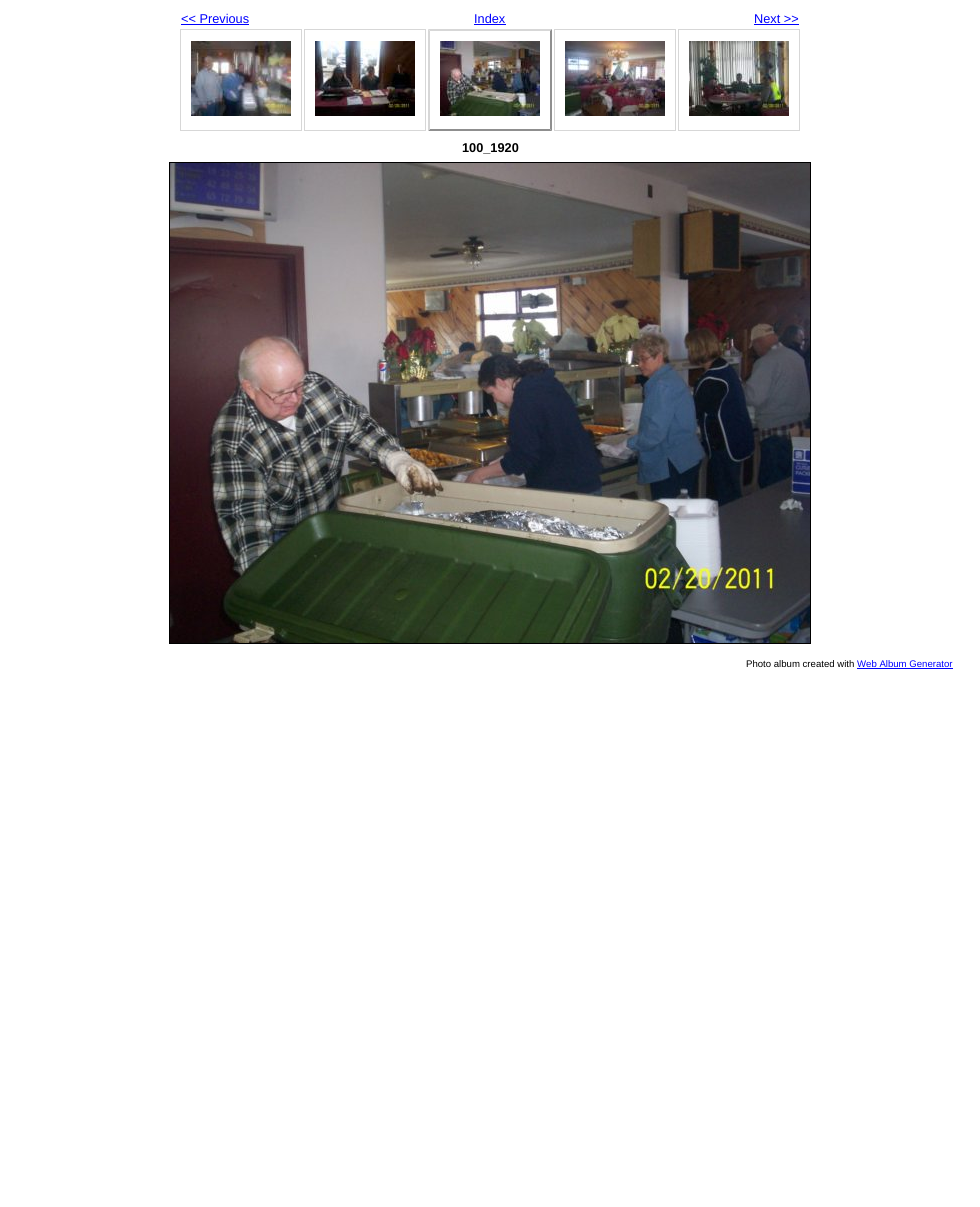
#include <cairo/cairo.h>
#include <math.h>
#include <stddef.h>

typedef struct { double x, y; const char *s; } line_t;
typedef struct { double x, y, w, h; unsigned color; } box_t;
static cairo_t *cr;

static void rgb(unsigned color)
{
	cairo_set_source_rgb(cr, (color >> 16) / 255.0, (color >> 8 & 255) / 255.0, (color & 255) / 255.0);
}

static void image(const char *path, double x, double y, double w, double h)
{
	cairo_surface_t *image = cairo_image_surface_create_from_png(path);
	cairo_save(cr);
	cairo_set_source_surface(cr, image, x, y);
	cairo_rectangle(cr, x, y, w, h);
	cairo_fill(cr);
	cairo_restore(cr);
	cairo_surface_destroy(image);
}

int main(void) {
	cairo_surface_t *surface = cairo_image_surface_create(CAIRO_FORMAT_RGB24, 980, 1207);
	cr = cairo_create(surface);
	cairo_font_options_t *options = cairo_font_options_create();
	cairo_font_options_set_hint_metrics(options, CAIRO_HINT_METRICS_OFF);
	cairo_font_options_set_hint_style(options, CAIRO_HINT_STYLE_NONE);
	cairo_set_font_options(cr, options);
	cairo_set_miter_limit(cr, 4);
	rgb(0xffffff);
	cairo_paint(cr);
	{
		static const box_t items[] = {
			{181, 24, 68, 1, 0x0000ff},
			{474, 24, 32, 1, 0x0000ff},
			{754, 24, 45, 1, 0x0000ff},
		};
		for (size_t i = 0; i < sizeof items / sizeof *items; i++) {
			rgb(items[i].color);
			cairo_rectangle(cr, items[i].x, items[i].y, items[i].w, items[i].h);
			cairo_fill(cr);
		}
	}
	cairo_rectangle(cr, 180.5, 29.5, 121, 101);
	rgb(0xd7d7d7);
	cairo_set_line_width(cr, 1);
	cairo_stroke(cr);
	image("img/1.png", 191, 41, 100, 75);
	cairo_rectangle(cr, 304.5, 29.5, 121, 101);
	cairo_stroke(cr);
	image("img/2.png", 315, 41, 100, 75);
	cairo_new_path(cr);
	cairo_move_to(cr, 428, 29);
	cairo_line_to(cr, 552, 29);
	cairo_line_to(cr, 550, 31);
	cairo_line_to(cr, 430, 31);
	cairo_close_path(cr);
	cairo_fill(cr);
	rgb(0x8f8f8f);
	cairo_new_path(cr);
	cairo_move_to(cr, 552, 29);
	cairo_line_to(cr, 552, 131);
	cairo_line_to(cr, 550, 129);
	cairo_line_to(cr, 550, 31);
	cairo_close_path(cr);
	cairo_fill(cr);
	cairo_new_path(cr);
	cairo_move_to(cr, 552, 131);
	cairo_line_to(cr, 428, 131);
	cairo_line_to(cr, 430, 129);
	cairo_line_to(cr, 550, 129);
	cairo_close_path(cr);
	cairo_fill(cr);
	rgb(0xd7d7d7);
	cairo_new_path(cr);
	cairo_move_to(cr, 428, 131);
	cairo_line_to(cr, 428, 29);
	cairo_line_to(cr, 430, 31);
	cairo_line_to(cr, 430, 129);
	cairo_close_path(cr);
	cairo_fill(cr);
	image("img/3.png", 440, 41, 100, 75);
	cairo_rectangle(cr, 554.5, 29.5, 121, 101);
	cairo_stroke(cr);
	image("img/4.png", 565, 41, 100, 75);
	cairo_rectangle(cr, 678.5, 29.5, 121, 101);
	cairo_stroke(cr);
	image("img/5.png", 689, 41, 100, 75);
	cairo_rectangle(cr, 169.5, 162.5, 641, 481);
	rgb(0x000000);
	cairo_stroke(cr);
	image("img/6.png", 170, 163, 640, 480);
	rgb(0x0000ff);
	cairo_rectangle(cr, 857, 668, 96, 1);
	cairo_fill(cr);
	cairo_select_font_face(cr, "Liberation Sans", CAIRO_FONT_SLANT_NORMAL, CAIRO_FONT_WEIGHT_NORMAL);
	cairo_set_font_size(cr, 12.75);
	{
		static const line_t items[] = {
			{181, 23, "<< Previous"},
			{474, 23, "Index"},
			{754, 23, "Next >>"},
		};
		for (size_t i = 0; i < sizeof items / sizeof *items; i++) {
			cairo_move_to(cr, items[i].x, items[i].y);
			cairo_show_text(cr, items[i].s);
		}
	}
	cairo_select_font_face(cr, "Liberation Sans", CAIRO_FONT_SLANT_NORMAL, CAIRO_FONT_WEIGHT_BOLD);
	rgb(0x000000);
	cairo_move_to(cr, 462, 152);
	cairo_show_text(cr, "100_1920");
	cairo_select_font_face(cr, "Liberation Sans", CAIRO_FONT_SLANT_NORMAL, CAIRO_FONT_WEIGHT_NORMAL);
	cairo_set_font_size(cr, 9.6);
	cairo_move_to(cr, 746, 667);
	cairo_show_text(cr, "Photo album created with");
	rgb(0x0000ff);
	cairo_move_to(cr, 857, 667);
	cairo_show_text(cr, "Web Album Generator");
	cairo_surface_write_to_png(surface, "page.png");
	cairo_font_options_destroy(options);
	cairo_destroy(cr);
	cairo_surface_destroy(surface);
	return 0;
}
